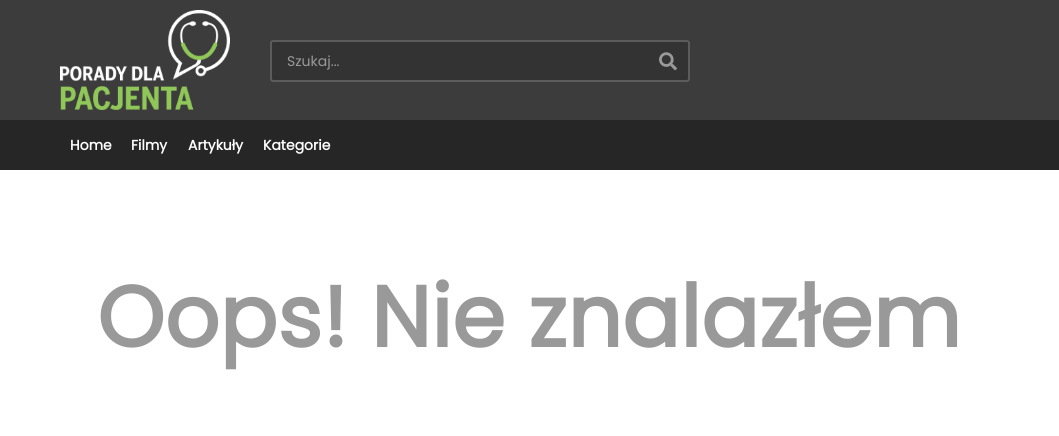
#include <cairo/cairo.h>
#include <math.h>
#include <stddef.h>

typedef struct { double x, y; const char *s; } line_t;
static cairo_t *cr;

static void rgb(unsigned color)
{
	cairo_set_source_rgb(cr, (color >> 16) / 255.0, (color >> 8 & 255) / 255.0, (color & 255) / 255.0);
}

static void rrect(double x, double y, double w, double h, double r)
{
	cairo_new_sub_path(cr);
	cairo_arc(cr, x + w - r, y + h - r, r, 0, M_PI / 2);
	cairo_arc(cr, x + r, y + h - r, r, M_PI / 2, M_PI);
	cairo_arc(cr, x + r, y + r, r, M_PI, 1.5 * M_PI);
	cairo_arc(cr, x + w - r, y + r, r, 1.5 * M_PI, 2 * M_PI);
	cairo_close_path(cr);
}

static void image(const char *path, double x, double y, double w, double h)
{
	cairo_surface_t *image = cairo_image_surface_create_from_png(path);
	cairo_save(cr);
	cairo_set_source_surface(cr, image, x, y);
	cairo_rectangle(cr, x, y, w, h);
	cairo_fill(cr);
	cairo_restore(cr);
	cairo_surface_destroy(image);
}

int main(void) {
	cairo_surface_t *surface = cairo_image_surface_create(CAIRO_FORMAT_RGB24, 1059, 436);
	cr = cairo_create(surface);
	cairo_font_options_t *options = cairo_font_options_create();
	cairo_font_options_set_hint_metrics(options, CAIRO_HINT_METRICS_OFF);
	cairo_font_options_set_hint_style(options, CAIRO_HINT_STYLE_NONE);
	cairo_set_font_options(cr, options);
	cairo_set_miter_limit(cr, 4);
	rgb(0xffffff);
	cairo_paint(cr);
	rgb(0x3c3c3c);
	cairo_rectangle(cr, 0, 0, 1059, 120);
	cairo_fill(cr);
	image("img/1.png", 60, 10, 170, 100);
	rgb(0x333333);
	rrect(270, 40, 420, 42, 3);
	cairo_fill(cr);
	rrect(271, 41, 418, 40, 2);
	cairo_set_source_rgba(cr, 1, 1, 1, 0.2);
	cairo_stroke(cr);
	image("img/2.png", 659, 52, 18, 19);
	rgb(0x262626);
	cairo_rectangle(cr, 0, 120, 1059, 50);
	cairo_fill(cr);
	cairo_select_font_face(cr, "Poppins", CAIRO_FONT_SLANT_NORMAL, CAIRO_FONT_WEIGHT_NORMAL);
	cairo_set_font_size(cr, 14);
	rgb(0x999999);
	cairo_move_to(cr, 287, 66);
	cairo_show_text(cr, "Szukaj...");
	cairo_select_font_face(cr, "Poppins", CAIRO_FONT_SLANT_NORMAL, CAIRO_FONT_WEIGHT_BOLD);
	rgb(0xffffff);
	{
		static const line_t items[] = {
			{70, 150, "Home"},
			{131, 150, "Filmy"},
			{188, 150, "Artykuły"},
			{263, 150, "Kategorie"},
		};
		for (size_t i = 0; i < sizeof items / sizeof *items; i++) {
			cairo_move_to(cr, items[i].x, items[i].y);
			cairo_show_text(cr, items[i].s);
		}
	}
	cairo_set_font_size(cr, 85.75);
	rgb(0x999999);
	cairo_move_to(cr, 97, 347);
	cairo_show_text(cr, "Oops! Nie znalazłem");
	cairo_surface_write_to_png(surface, "page.png");
	cairo_font_options_destroy(options);
	cairo_destroy(cr);
	cairo_surface_destroy(surface);
	return 0;
}
